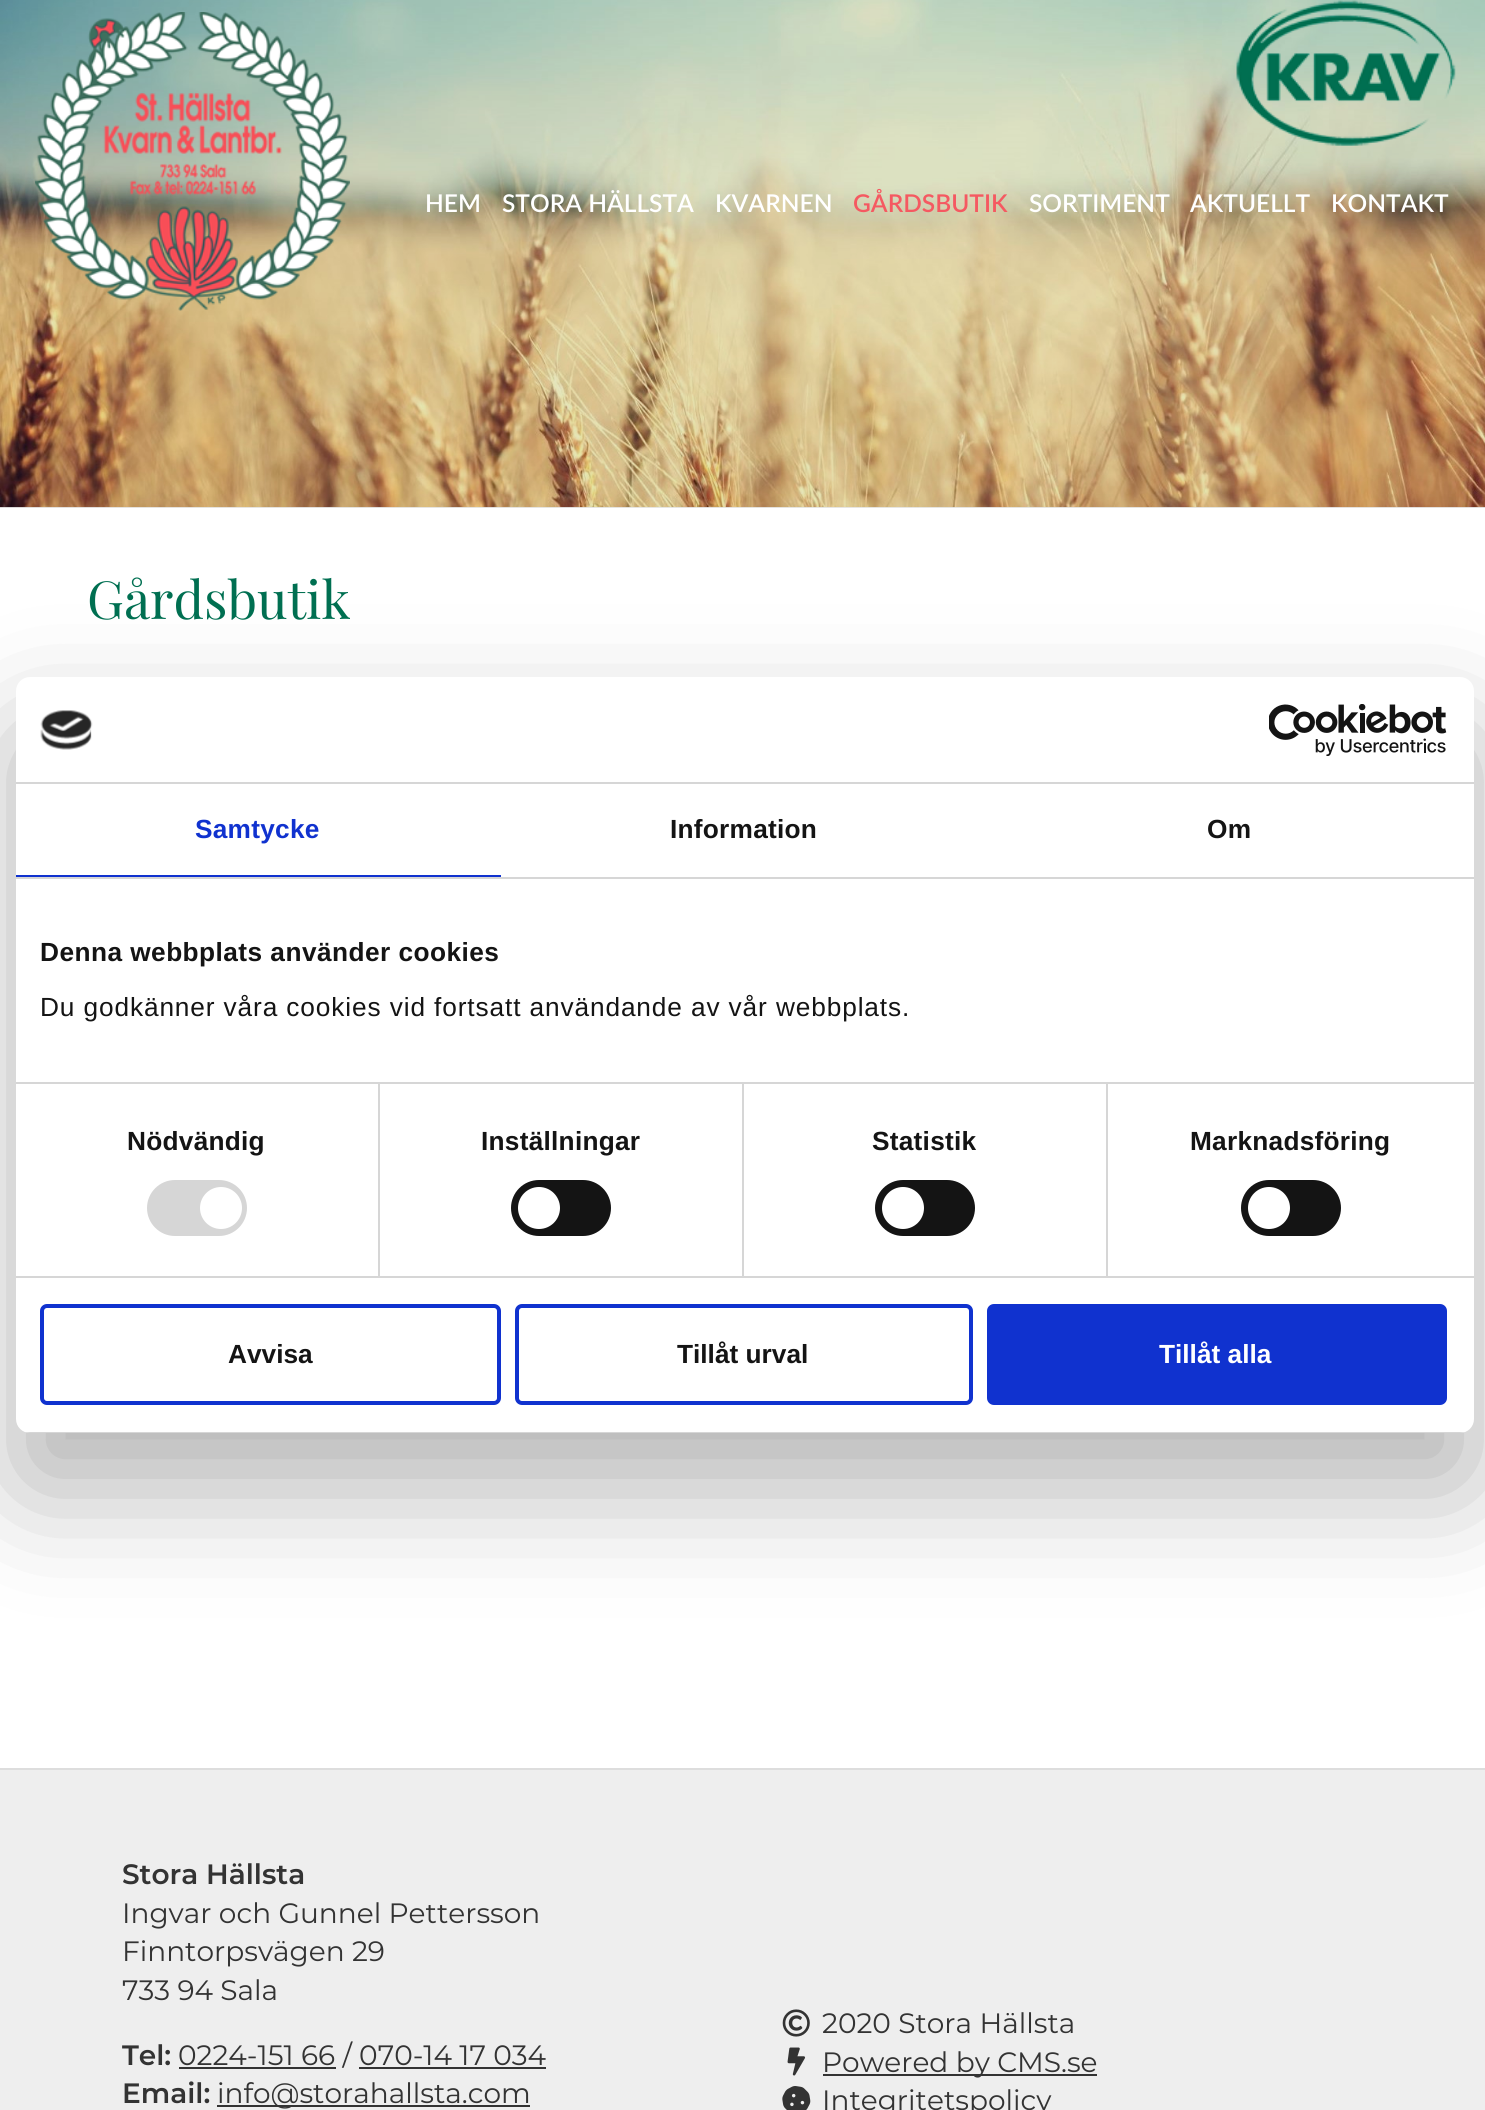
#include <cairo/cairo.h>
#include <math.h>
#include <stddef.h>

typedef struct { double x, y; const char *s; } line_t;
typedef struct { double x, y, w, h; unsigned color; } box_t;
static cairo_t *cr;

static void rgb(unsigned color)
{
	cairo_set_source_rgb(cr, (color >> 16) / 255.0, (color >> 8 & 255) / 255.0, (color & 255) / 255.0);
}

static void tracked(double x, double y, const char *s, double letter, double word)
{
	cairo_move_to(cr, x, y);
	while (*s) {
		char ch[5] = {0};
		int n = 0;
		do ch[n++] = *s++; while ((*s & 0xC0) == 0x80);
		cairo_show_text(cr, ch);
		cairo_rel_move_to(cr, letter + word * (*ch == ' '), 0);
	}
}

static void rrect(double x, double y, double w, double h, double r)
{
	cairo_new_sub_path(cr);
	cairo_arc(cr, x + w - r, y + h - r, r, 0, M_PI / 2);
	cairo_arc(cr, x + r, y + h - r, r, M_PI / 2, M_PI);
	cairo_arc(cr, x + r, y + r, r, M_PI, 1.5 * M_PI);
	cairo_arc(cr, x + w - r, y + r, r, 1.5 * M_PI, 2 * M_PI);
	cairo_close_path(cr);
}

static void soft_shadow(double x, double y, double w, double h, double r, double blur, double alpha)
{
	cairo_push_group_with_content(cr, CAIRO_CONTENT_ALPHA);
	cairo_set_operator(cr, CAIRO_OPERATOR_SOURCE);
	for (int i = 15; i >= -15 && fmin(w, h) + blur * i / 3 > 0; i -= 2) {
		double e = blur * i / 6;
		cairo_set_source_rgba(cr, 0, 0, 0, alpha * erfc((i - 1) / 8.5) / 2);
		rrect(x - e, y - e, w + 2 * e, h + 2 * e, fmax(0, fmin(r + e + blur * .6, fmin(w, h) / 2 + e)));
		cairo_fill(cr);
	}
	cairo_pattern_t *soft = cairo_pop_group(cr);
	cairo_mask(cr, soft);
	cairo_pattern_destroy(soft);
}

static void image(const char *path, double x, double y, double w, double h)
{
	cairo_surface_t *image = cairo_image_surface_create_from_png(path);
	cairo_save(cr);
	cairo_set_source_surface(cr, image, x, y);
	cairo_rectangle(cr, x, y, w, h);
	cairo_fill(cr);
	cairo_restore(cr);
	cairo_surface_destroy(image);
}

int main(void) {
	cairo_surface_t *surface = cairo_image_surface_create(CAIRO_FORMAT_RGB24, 1485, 2110);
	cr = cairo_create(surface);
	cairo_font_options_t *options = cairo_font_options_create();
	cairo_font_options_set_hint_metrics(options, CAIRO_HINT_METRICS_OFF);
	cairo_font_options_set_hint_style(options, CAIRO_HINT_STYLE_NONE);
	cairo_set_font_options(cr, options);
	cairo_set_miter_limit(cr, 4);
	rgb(0xffffff);
	cairo_paint(cr);
	rgb(0xe6e6e6);
	cairo_rectangle(cr, 0, 507, 1485, 1);
	cairo_fill(cr);
	image("img/3.png", 0, 0, 1485, 508);
	image("img/1.png", 35, 12, 315, 299);
	image("img/2.png", 1236, 0, 220, 146);
	rgb(0x000000);
	soft_shadow(16, 733, 1458, 756, 14, 59.5, 0.3);
	rgb(0xffffff);
	rrect(16, 677, 1458, 756, 14);
	cairo_fill(cr);
	rgb(0xd6d6d6);
	cairo_rectangle(cr, 16, 782, 1458, 2);
	cairo_fill(cr);
	image("img/4.png", 40, 710, 53, 40);
	image("img/5.png", 1269, 704, 178, 52);
	{
		static const box_t items[] = {
			{16, 877, 1458, 2, 0xd6d6d6},
			{16, 875, 485, 2, 0x1032cf},
			{378, 1083, 2, 193, 0xd6d6d6},
			{742, 1083, 2, 193, 0xd6d6d6},
			{1106, 1083, 2, 193, 0xd6d6d6},
			{16, 1082, 1458, 2, 0xd6d6d6},
			{16, 1276, 1458, 2, 0xd6d6d6},
		};
		for (size_t i = 0; i < sizeof items / sizeof *items; i++) {
			rgb(items[i].color);
			cairo_rectangle(cr, items[i].x, items[i].y, items[i].w, items[i].h);
			cairo_fill(cr);
		}
	}
	rrect(147, 1180, 100, 56, 28);
	cairo_fill(cr);
	rgb(0xffffff);
	cairo_arc(cr, 221, 1208, 21, 0, 2 * M_PI);
	cairo_fill(cr);
	rgb(0x141414);
	rrect(511, 1180, 100, 56, 28);
	cairo_fill(cr);
	rgb(0xffffff);
	cairo_arc(cr, 539, 1208, 21, 0, 2 * M_PI);
	cairo_fill(cr);
	rgb(0x141414);
	rrect(875, 1180, 100, 56, 28);
	cairo_fill(cr);
	rgb(0xffffff);
	cairo_arc(cr, 903, 1208, 21, 0, 2 * M_PI);
	cairo_fill(cr);
	rgb(0x141414);
	rrect(1241, 1180, 100, 56, 28);
	cairo_fill(cr);
	rgb(0xffffff);
	cairo_arc(cr, 1269, 1208, 21, 0, 2 * M_PI);
	cairo_fill(cr);
	cairo_save(cr);
	rrect(16, 677, 1458, 756, 14);
	cairo_clip(cr);
	rgb(0xd6d6d6);
	cairo_rectangle(cr, 25, 1432, 1440, 1);
	cairo_fill(cr);
	cairo_restore(cr);
	rrect(42, 1306, 457, 97, 5);
	rgb(0x1032cf);
	cairo_set_line_width(cr, 4);
	cairo_stroke(cr);
	rrect(517, 1306, 454, 97, 5);
	cairo_stroke(cr);
	rrect(989, 1306, 456, 97, 5);
	cairo_fill_preserve(cr);
	cairo_stroke(cr);
	{
		static const box_t items[] = {
			{0, 1770, 1485, 340, 0xeeeeee},
			{0, 1768, 1485, 2, 0xdddddd},
			{179, 2067, 157, 2, 0x333333},
			{359, 2067, 187, 2, 0x333333},
			{217, 2105, 313, 2, 0x333333},
		};
		for (size_t i = 0; i < sizeof items / sizeof *items; i++) {
			rgb(items[i].color);
			cairo_rectangle(cr, items[i].x, items[i].y, items[i].w, items[i].h);
			cairo_fill(cr);
		}
	}
	image("img/6.png", 782, 2009, 28, 28);
	image("img/7.png", 787, 2047, 19, 29);
	cairo_rectangle(cr, 823, 2074, 274, 2);
	cairo_fill(cr);
	image("img/8.png", 782, 2086, 29, 24);
	cairo_select_font_face(cr, "Lato SemiBold", CAIRO_FONT_SLANT_NORMAL, CAIRO_FONT_WEIGHT_NORMAL);
	cairo_set_font_size(cr, 24.5);
	rgb(0xffffff);
	{
		static const line_t items[] = {
			{425, 212, "HEM"},
			{502, 212, "STORA HÄLLSTA"},
			{715, 212, "KVARNEN"},
		};
		for (size_t i = 0; i < sizeof items / sizeof *items; i++) {
			cairo_move_to(cr, items[i].x, items[i].y);
			cairo_show_text(cr, items[i].s);
		}
	}
	rgb(0xf55961);
	cairo_move_to(cr, 853, 212);
	cairo_show_text(cr, "GÅRDSBUTIK");
	rgb(0xffffff);
	{
		static const line_t items[] = {
			{1029, 212, "SORTIMENT"},
			{1190, 212, "AKTUELLT"},
			{1331, 212, "KONTAKT"},
		};
		for (size_t i = 0; i < sizeof items / sizeof *items; i++) {
			cairo_move_to(cr, items[i].x, items[i].y);
			cairo_show_text(cr, items[i].s);
		}
	}
	cairo_select_font_face(cr, "Playfair Display", CAIRO_FONT_SLANT_NORMAL, CAIRO_FONT_WEIGHT_NORMAL);
	cairo_set_font_size(cr, 52.5);
	rgb(0x006f51);
	cairo_move_to(cr, 87, 619);
	cairo_show_text(cr, "Gårdsbutik");
	cairo_select_font_face(cr, "Liberation Sans", CAIRO_FONT_SLANT_NORMAL, CAIRO_FONT_WEIGHT_BOLD);
	cairo_set_font_size(cr, 26.25);
	rgb(0x1032cf);
	tracked(195, 838, "Samtycke", 0.25, 0);
	rgb(0x141414);
	tracked(670, 838, "Information", 0.25, 0);
	tracked(1207, 838, "Om", 0.25, 0);
	tracked(40, 961, "Denna webbplats använder cookies", 0.45, 0);
	cairo_select_font_face(cr, "Liberation Sans", CAIRO_FONT_SLANT_NORMAL, CAIRO_FONT_WEIGHT_NORMAL);
	tracked(40, 1016, "Du godkänner våra cookies vid fortsatt användande av vår webbplats.", 0.88, 0);
	cairo_select_font_face(cr, "Liberation Sans", CAIRO_FONT_SLANT_NORMAL, CAIRO_FONT_WEIGHT_BOLD);
	{
		static const line_t items[] = {
			{127, 1150, "Nödvändig"},
			{481, 1150, "Inställningar"},
			{872, 1150, "Statistik"},
			{1190, 1150, "Marknadsföring"},
		};
		for (size_t i = 0; i < sizeof items / sizeof *items; i++) {
			tracked(items[i].x, items[i].y, items[i].s, 0.25, 0);
		}
	}
	cairo_move_to(cr, 228, 1363);
	cairo_show_text(cr, "Avvisa");
	cairo_move_to(cr, 677, 1363);
	cairo_show_text(cr, "Tillåt urval");
	rgb(0xffffff);
	cairo_move_to(cr, 1159, 1363);
	cairo_show_text(cr, "Tillåt alla");
	cairo_select_font_face(cr, "Montserrat SemiBold", CAIRO_FONT_SLANT_NORMAL, CAIRO_FONT_WEIGHT_NORMAL);
	cairo_set_font_size(cr, 28);
	rgb(0x333333);
	cairo_move_to(cr, 122, 1884);
	cairo_show_text(cr, "Stora Hällsta");
	cairo_select_font_face(cr, "Montserrat", CAIRO_FONT_SLANT_NORMAL, CAIRO_FONT_WEIGHT_NORMAL);
	{
		static const line_t items[] = {
			{122, 1923, "Ingvar och Gunnel Pettersson"},
			{122, 1961, "Finntorpsvägen 29"},
			{122, 2000, "733 94 Sala"},
		};
		for (size_t i = 0; i < sizeof items / sizeof *items; i++) {
			cairo_move_to(cr, items[i].x, items[i].y);
			cairo_show_text(cr, items[i].s);
		}
	}
	cairo_select_font_face(cr, "Montserrat SemiBold", CAIRO_FONT_SLANT_NORMAL, CAIRO_FONT_WEIGHT_NORMAL);
	cairo_move_to(cr, 122, 2065);
	cairo_show_text(cr, "Tel:");
	cairo_select_font_face(cr, "Montserrat", CAIRO_FONT_SLANT_NORMAL, CAIRO_FONT_WEIGHT_NORMAL);
	cairo_move_to(cr, 178, 2065);
	cairo_show_text(cr, "0224-151 66 / 070-14 17 034");
	cairo_select_font_face(cr, "Montserrat SemiBold", CAIRO_FONT_SLANT_NORMAL, CAIRO_FONT_WEIGHT_NORMAL);
	cairo_move_to(cr, 122, 2103);
	cairo_show_text(cr, "Email:");
	cairo_select_font_face(cr, "Montserrat", CAIRO_FONT_SLANT_NORMAL, CAIRO_FONT_WEIGHT_NORMAL);
	{
		static const line_t items[] = {
			{217, 2103, "info@storahallsta.com"},
			{822, 2033, "2020 Stora Hällsta"},
			{822, 2072, "Powered by CMS.se"},
			{822, 2110, "Integritetspolicy"},
		};
		for (size_t i = 0; i < sizeof items / sizeof *items; i++) {
			cairo_move_to(cr, items[i].x, items[i].y);
			cairo_show_text(cr, items[i].s);
		}
	}
	cairo_surface_write_to_png(surface, "page.png");
	cairo_font_options_destroy(options);
	cairo_destroy(cr);
	cairo_surface_destroy(surface);
	return 0;
}
